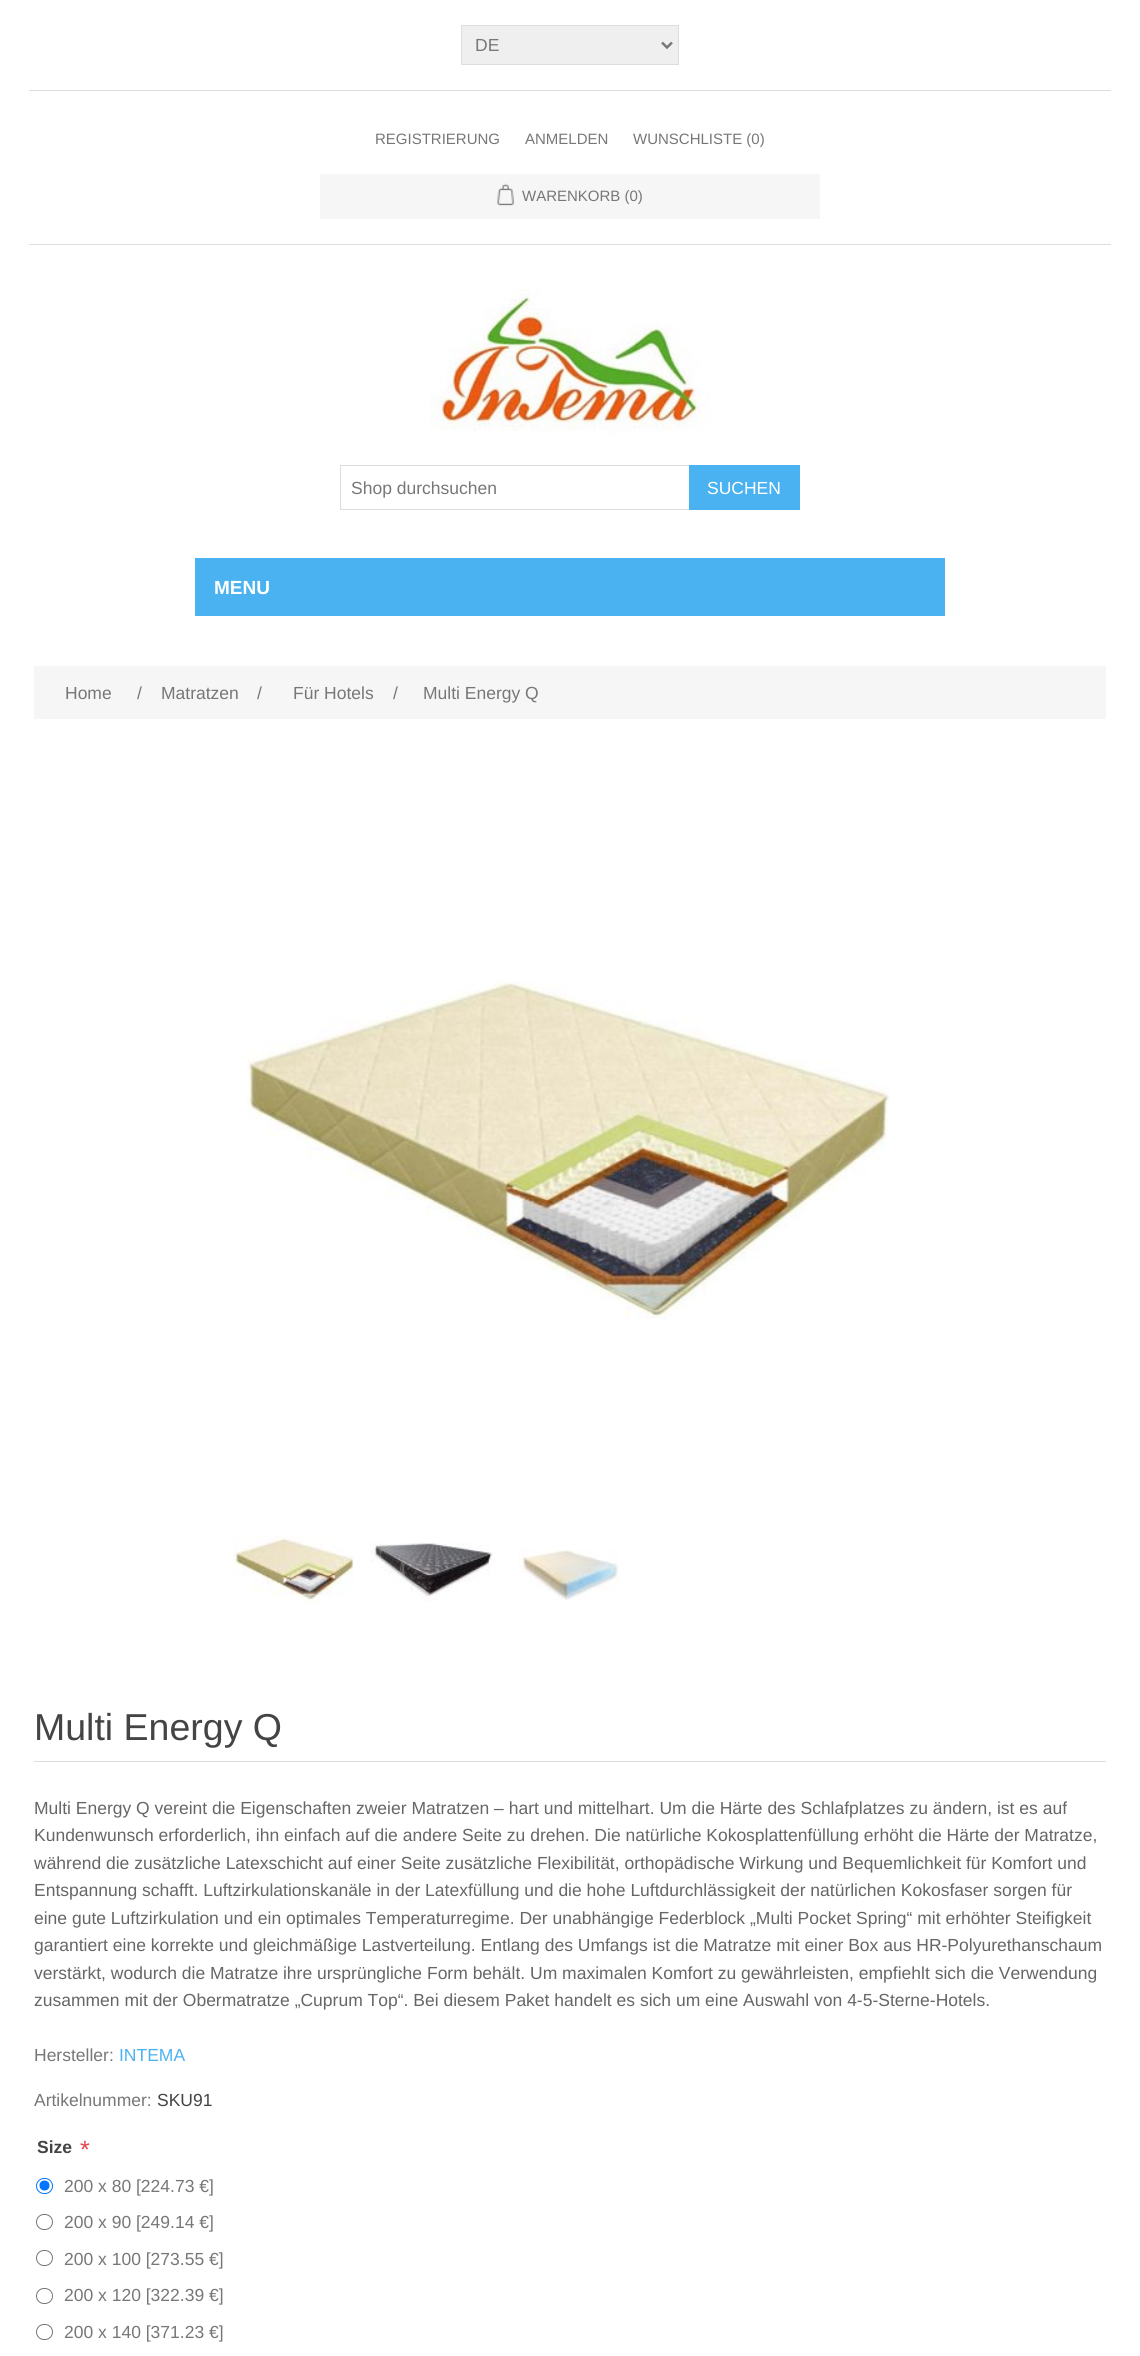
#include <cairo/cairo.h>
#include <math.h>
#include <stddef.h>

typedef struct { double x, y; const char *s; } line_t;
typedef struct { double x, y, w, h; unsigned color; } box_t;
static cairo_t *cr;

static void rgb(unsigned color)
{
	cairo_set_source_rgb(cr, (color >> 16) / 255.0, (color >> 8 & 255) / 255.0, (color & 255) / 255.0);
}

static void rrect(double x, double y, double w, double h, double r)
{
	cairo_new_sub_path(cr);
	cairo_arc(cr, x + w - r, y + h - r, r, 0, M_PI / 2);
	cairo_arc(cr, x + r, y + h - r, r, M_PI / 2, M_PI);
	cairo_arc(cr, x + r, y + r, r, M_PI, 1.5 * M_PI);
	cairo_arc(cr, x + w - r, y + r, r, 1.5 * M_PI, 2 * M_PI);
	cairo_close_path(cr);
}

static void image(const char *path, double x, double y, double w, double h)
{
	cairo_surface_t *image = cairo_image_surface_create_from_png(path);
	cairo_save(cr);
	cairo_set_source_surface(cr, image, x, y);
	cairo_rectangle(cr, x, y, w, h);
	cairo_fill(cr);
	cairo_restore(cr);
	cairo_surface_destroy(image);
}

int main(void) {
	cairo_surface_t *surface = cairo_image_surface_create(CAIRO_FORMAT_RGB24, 1140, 2356);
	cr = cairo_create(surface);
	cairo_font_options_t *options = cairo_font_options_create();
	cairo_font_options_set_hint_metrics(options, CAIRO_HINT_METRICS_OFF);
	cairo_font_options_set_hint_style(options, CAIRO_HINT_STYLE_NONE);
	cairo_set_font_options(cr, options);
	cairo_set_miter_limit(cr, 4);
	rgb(0xffffff);
	cairo_paint(cr);
	rgb(0xdddddd);
	cairo_rectangle(cr, 29, 244, 1082, 1);
	cairo_fill(cr);
	cairo_rectangle(cr, 29, 90, 1082, 1);
	cairo_fill(cr);
	rgb(0xefefef);
	cairo_rectangle(cr, 461.5, 25.5, 217, 39);
	cairo_fill_preserve(cr);
	rgb(0xdddddd);
	cairo_set_line_width(cr, 1);
	cairo_stroke(cr);
	cairo_new_path(cr);
	cairo_move_to(cr, 662, 42.5);
	cairo_line_to(cr, 667, 47.5);
	cairo_line_to(cr, 672, 42.5);
	rgb(0x777777);
	cairo_set_line_width(cr, 2.5);
	cairo_stroke(cr);
	rgb(0xf6f6f6);
	cairo_rectangle(cr, 320, 174, 500, 45);
	cairo_fill(cr);
	image("img/1.png", 497, 183, 17, 23);
	image("img/2.png", 430, 289, 280, 147);
	cairo_rectangle(cr, 340.5, 465.5, 349, 44);
	rgb(0xdddddd);
	cairo_set_line_width(cr, 1);
	cairo_stroke(cr);
	{
		static const box_t items[] = {
			{689, 465, 111, 45, 0x4ab2f1},
			{195, 558, 750, 58, 0x4ab2f1},
			{34, 666, 1072, 53, 0xf6f6f6},
		};
		for (size_t i = 0; i < sizeof items / sizeof *items; i++) {
			rgb(items[i].color);
			cairo_rectangle(cr, items[i].x, items[i].y, items[i].w, items[i].h);
			cairo_fill(cr);
		}
	}
	image("img/3.png", 247, 981, 642, 339);
	image("img/4.png", 233, 1535, 121, 69);
	image("img/5.png", 370, 1542, 125, 60);
	image("img/6.png", 518, 1549, 102, 51);
	rgb(0xdddddd);
	cairo_rectangle(cr, 34, 1761, 1072, 1);
	cairo_fill(cr);
	rrect(36.5, 2178.5, 16, 15, 7.5);
	rgb(0x0075ff);
	cairo_stroke(cr);
	cairo_arc(cr, 44.5, 2185.5, 5, 0, 2 * M_PI);
	cairo_fill(cr);
	rrect(36.5, 2214.5, 16, 15, 7.5);
	rgb(0x767676);
	cairo_stroke(cr);
	rrect(36.5, 2250.5, 16, 15, 7.5);
	cairo_stroke(cr);
	rrect(36.5, 2288.5, 16, 15, 7.5);
	cairo_stroke(cr);
	rrect(36.5, 2324.5, 16, 15, 7.5);
	cairo_stroke(cr);
	cairo_select_font_face(cr, "Liberation Sans", CAIRO_FONT_SLANT_NORMAL, CAIRO_FONT_WEIGHT_NORMAL);
	cairo_set_font_size(cr, 17.5);
	rgb(0x777777);
	cairo_move_to(cr, 475, 51);
	cairo_show_text(cr, "DE");
	cairo_set_font_size(cr, 15);
	{
		static const line_t items[] = {
			{375, 144, "REGISTRIERUNG"},
			{525, 144, "ANMELDEN"},
			{633, 144, "WUNSCHLISTE (0)"},
			{522, 201, "WARENKORB (0)"},
		};
		for (size_t i = 0; i < sizeof items / sizeof *items; i++) {
			cairo_move_to(cr, items[i].x, items[i].y);
			cairo_show_text(cr, items[i].s);
		}
	}
	cairo_set_font_size(cr, 17.5);
	cairo_move_to(cr, 351, 494);
	cairo_show_text(cr, "Shop durchsuchen");
	rgb(0xffffff);
	cairo_move_to(cr, 707, 494);
	cairo_show_text(cr, "SUCHEN");
	cairo_select_font_face(cr, "Liberation Sans", CAIRO_FONT_SLANT_NORMAL, CAIRO_FONT_WEIGHT_BOLD);
	cairo_set_font_size(cr, 19);
	cairo_move_to(cr, 214, 594);
	cairo_show_text(cr, "MENU");
	cairo_select_font_face(cr, "Liberation Sans", CAIRO_FONT_SLANT_NORMAL, CAIRO_FONT_WEIGHT_NORMAL);
	cairo_set_font_size(cr, 17.5);
	rgb(0x777777);
	{
		static const line_t items[] = {
			{65, 699, "Home"},
			{137, 699, "/"},
			{161, 699, "Matratzen"},
			{257, 699, "/"},
			{293, 699, "Für Hotels"},
			{393, 699, "/"},
			{423, 699, "Multi Energy Q"},
		};
		for (size_t i = 0; i < sizeof items / sizeof *items; i++) {
			cairo_move_to(cr, items[i].x, items[i].y);
			cairo_show_text(cr, items[i].s);
		}
	}
	cairo_set_font_size(cr, 37.5);
	rgb(0x444444);
	cairo_move_to(cr, 34, 1740);
	cairo_show_text(cr, "Multi Energy Q");
	cairo_set_font_size(cr, 17.5);
	rgb(0x666666);
	{
		static const line_t items[] = {
			{34, 1814, "Multi Energy Q vereint die Eigenschaften zweier Matratzen – hart und mittelhart. Um die Härte des Schlafplatzes zu ändern, ist es auf"},
			{34, 1841, "Kundenwunsch erforderlich, ihn einfach auf die andere Seite zu drehen. Die natürliche Kokosplattenfüllung erhöht die Härte der Matratze,"},
			{34, 1869, "während die zusätzliche Latexschicht auf einer Seite zusätzliche Flexibilität, orthopädische Wirkung und Bequemlichkeit für Komfort und"},
			{34, 1896, "Entspannung schafft. Luftzirkulationskanäle in der Latexfüllung und die hohe Luftdurchlässigkeit der natürlichen Kokosfaser sorgen für"},
			{34, 1924, "eine gute Luftzirkulation und ein optimales Temperaturregime. Der unabhängige Federblock „Multi Pocket Spring“ mit erhöhter Steifigkeit"},
			{34, 1951, "garantiert eine korrekte und gleichmäßige Lastverteilung. Entlang des Umfangs ist die Matratze mit einer Box aus HR-Polyurethanschaum"},
			{34, 1979, "verstärkt, wodurch die Matratze ihre ursprüngliche Form behält. Um maximalen Komfort zu gewährleisten, empfiehlt sich die Verwendung"},
			{34, 2006, "zusammen mit der Obermatratze „Cuprum Top“. Bei diesem Paket handelt es sich um eine Auswahl von 4-5-Sterne-Hotels."},
		};
		for (size_t i = 0; i < sizeof items / sizeof *items; i++) {
			cairo_move_to(cr, items[i].x, items[i].y);
			cairo_show_text(cr, items[i].s);
		}
	}
	rgb(0x777777);
	cairo_move_to(cr, 34, 2061);
	cairo_show_text(cr, "Hersteller:");
	rgb(0x4ab2f1);
	cairo_move_to(cr, 119, 2061);
	cairo_show_text(cr, "INTEMA");
	rgb(0x777777);
	cairo_move_to(cr, 34, 2106);
	cairo_show_text(cr, "Artikelnummer:");
	rgb(0x444444);
	cairo_move_to(cr, 157, 2106);
	cairo_show_text(cr, "SKU91");
	cairo_select_font_face(cr, "Liberation Sans", CAIRO_FONT_SLANT_NORMAL, CAIRO_FONT_WEIGHT_BOLD);
	cairo_move_to(cr, 37, 2153);
	cairo_show_text(cr, "Size");
	cairo_select_font_face(cr, "Liberation Sans", CAIRO_FONT_SLANT_NORMAL, CAIRO_FONT_WEIGHT_NORMAL);
	cairo_set_font_size(cr, 25);
	rgb(0xe4434b);
	cairo_move_to(cr, 80, 2158);
	cairo_show_text(cr, "*");
	cairo_set_font_size(cr, 17.5);
	rgb(0x777777);
	{
		static const line_t items[] = {
			{64, 2192, "200 x 80 [224.73 €]"},
			{64, 2228, "200 x 90 [249.14 €]"},
			{64, 2265, "200 x 100 [273.55 €]"},
			{64, 2301, "200 x 120 [322.39 €]"},
			{64, 2338, "200 x 140 [371.23 €]"},
		};
		for (size_t i = 0; i < sizeof items / sizeof *items; i++) {
			cairo_move_to(cr, items[i].x, items[i].y);
			cairo_show_text(cr, items[i].s);
		}
	}
	cairo_surface_write_to_png(surface, "page.png");
	cairo_font_options_destroy(options);
	cairo_destroy(cr);
	cairo_surface_destroy(surface);
	return 0;
}
